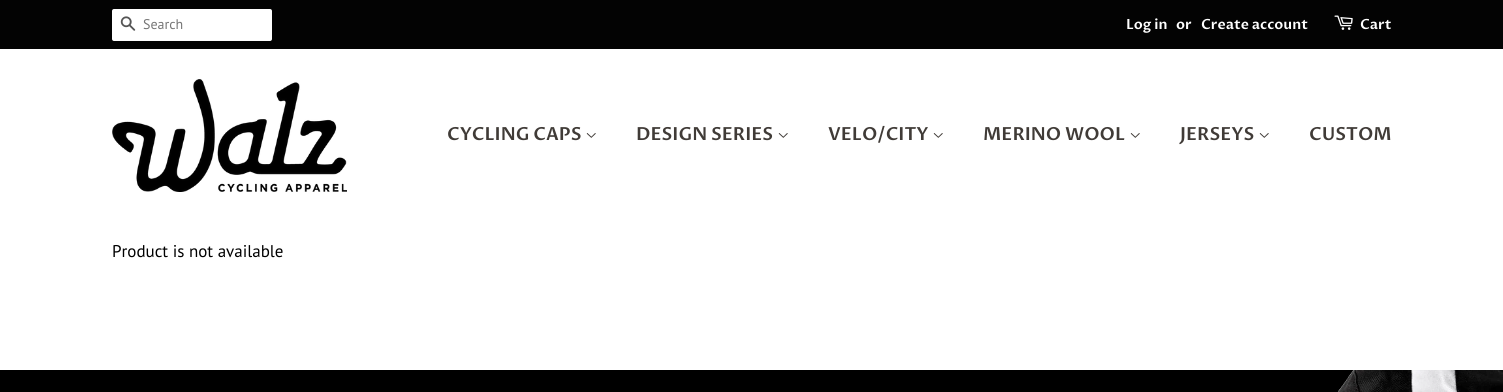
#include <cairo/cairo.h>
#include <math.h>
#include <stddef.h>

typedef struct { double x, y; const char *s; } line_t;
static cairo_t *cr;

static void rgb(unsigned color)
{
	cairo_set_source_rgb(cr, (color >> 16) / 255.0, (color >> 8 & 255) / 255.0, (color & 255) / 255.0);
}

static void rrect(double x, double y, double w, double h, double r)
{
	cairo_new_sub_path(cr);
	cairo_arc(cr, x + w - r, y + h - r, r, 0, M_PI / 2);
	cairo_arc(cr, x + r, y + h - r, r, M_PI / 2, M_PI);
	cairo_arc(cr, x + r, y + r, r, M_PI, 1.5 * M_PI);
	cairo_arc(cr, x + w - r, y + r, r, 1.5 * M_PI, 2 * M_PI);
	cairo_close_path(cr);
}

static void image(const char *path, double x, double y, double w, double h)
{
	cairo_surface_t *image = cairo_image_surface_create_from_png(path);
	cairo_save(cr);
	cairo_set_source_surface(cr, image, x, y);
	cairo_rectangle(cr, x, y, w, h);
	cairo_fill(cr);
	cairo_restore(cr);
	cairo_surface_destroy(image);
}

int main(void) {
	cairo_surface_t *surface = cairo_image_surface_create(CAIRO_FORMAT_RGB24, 1503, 392);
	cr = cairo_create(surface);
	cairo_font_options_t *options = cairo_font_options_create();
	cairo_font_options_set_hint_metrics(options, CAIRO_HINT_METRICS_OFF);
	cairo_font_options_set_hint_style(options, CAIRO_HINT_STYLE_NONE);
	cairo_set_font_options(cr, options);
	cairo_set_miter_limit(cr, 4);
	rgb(0xffffff);
	cairo_paint(cr);
	rgb(0x030303);
	cairo_rectangle(cr, 0, 0, 1503, 49);
	cairo_fill(cr);
	rgb(0xffffff);
	rrect(112, 9, 160, 32, 2);
	cairo_fill(cr);
	image("img/1.png", 120, 16, 16, 15);
	image("img/2.png", 1334, 15, 19, 15);
	image("img/3.png", 112, 79, 235, 113);
	image("img/4.png", 586, 133, 10, 5);
	image("img/4.png", 778, 133, 10, 5);
	image("img/4.png", 933, 133, 10, 5);
	image("img/4.png", 1130, 133, 10, 5);
	image("img/4.png", 1259, 133, 10, 5);
	rgb(0x000000);
	cairo_rectangle(cr, 0, 370, 1338, 22);
	cairo_fill(cr);
	image("img/5.png", 1338, 370, 165, 22);
	cairo_select_font_face(cr, "PT Sans", CAIRO_FONT_SLANT_NORMAL, CAIRO_FONT_WEIGHT_NORMAL);
	cairo_set_font_size(cr, 14);
	rgb(0x757575);
	cairo_move_to(cr, 143, 29);
	cairo_show_text(cr, "Search");
	cairo_select_font_face(cr, "Proza Libre SemiBold", CAIRO_FONT_SLANT_NORMAL, CAIRO_FONT_WEIGHT_NORMAL);
	rgb(0xffffff);
	{
		static const line_t items[] = {
			{1126, 29, "Log in"},
			{1176, 29, "or"},
			{1201, 29, "Create account"},
			{1360, 29, "Cart"},
		};
		for (size_t i = 0; i < sizeof items / sizeof *items; i++) {
			cairo_move_to(cr, items[i].x, items[i].y);
			cairo_show_text(cr, items[i].s);
		}
	}
	cairo_set_font_size(cr, 18);
	rgb(0x403b37);
	{
		static const line_t items[] = {
			{447, 140, "CYCLING CAPS"},
			{636, 140, "DESIGN SERIES"},
			{828, 140, "VELO/CITY"},
			{983, 140, "MERINO WOOL"},
			{1180, 140, "JERSEYS"},
			{1309, 140, "CUSTOM"},
		};
		for (size_t i = 0; i < sizeof items / sizeof *items; i++) {
			cairo_move_to(cr, items[i].x, items[i].y);
			cairo_show_text(cr, items[i].s);
		}
	}
	cairo_select_font_face(cr, "PT Sans", CAIRO_FONT_SLANT_NORMAL, CAIRO_FONT_WEIGHT_NORMAL);
	cairo_set_font_size(cr, 17);
	rgb(0x000000);
	cairo_move_to(cr, 112, 257);
	cairo_show_text(cr, "Product is not available");
	cairo_surface_write_to_png(surface, "page.png");
	cairo_font_options_destroy(options);
	cairo_destroy(cr);
	cairo_surface_destroy(surface);
	return 0;
}
